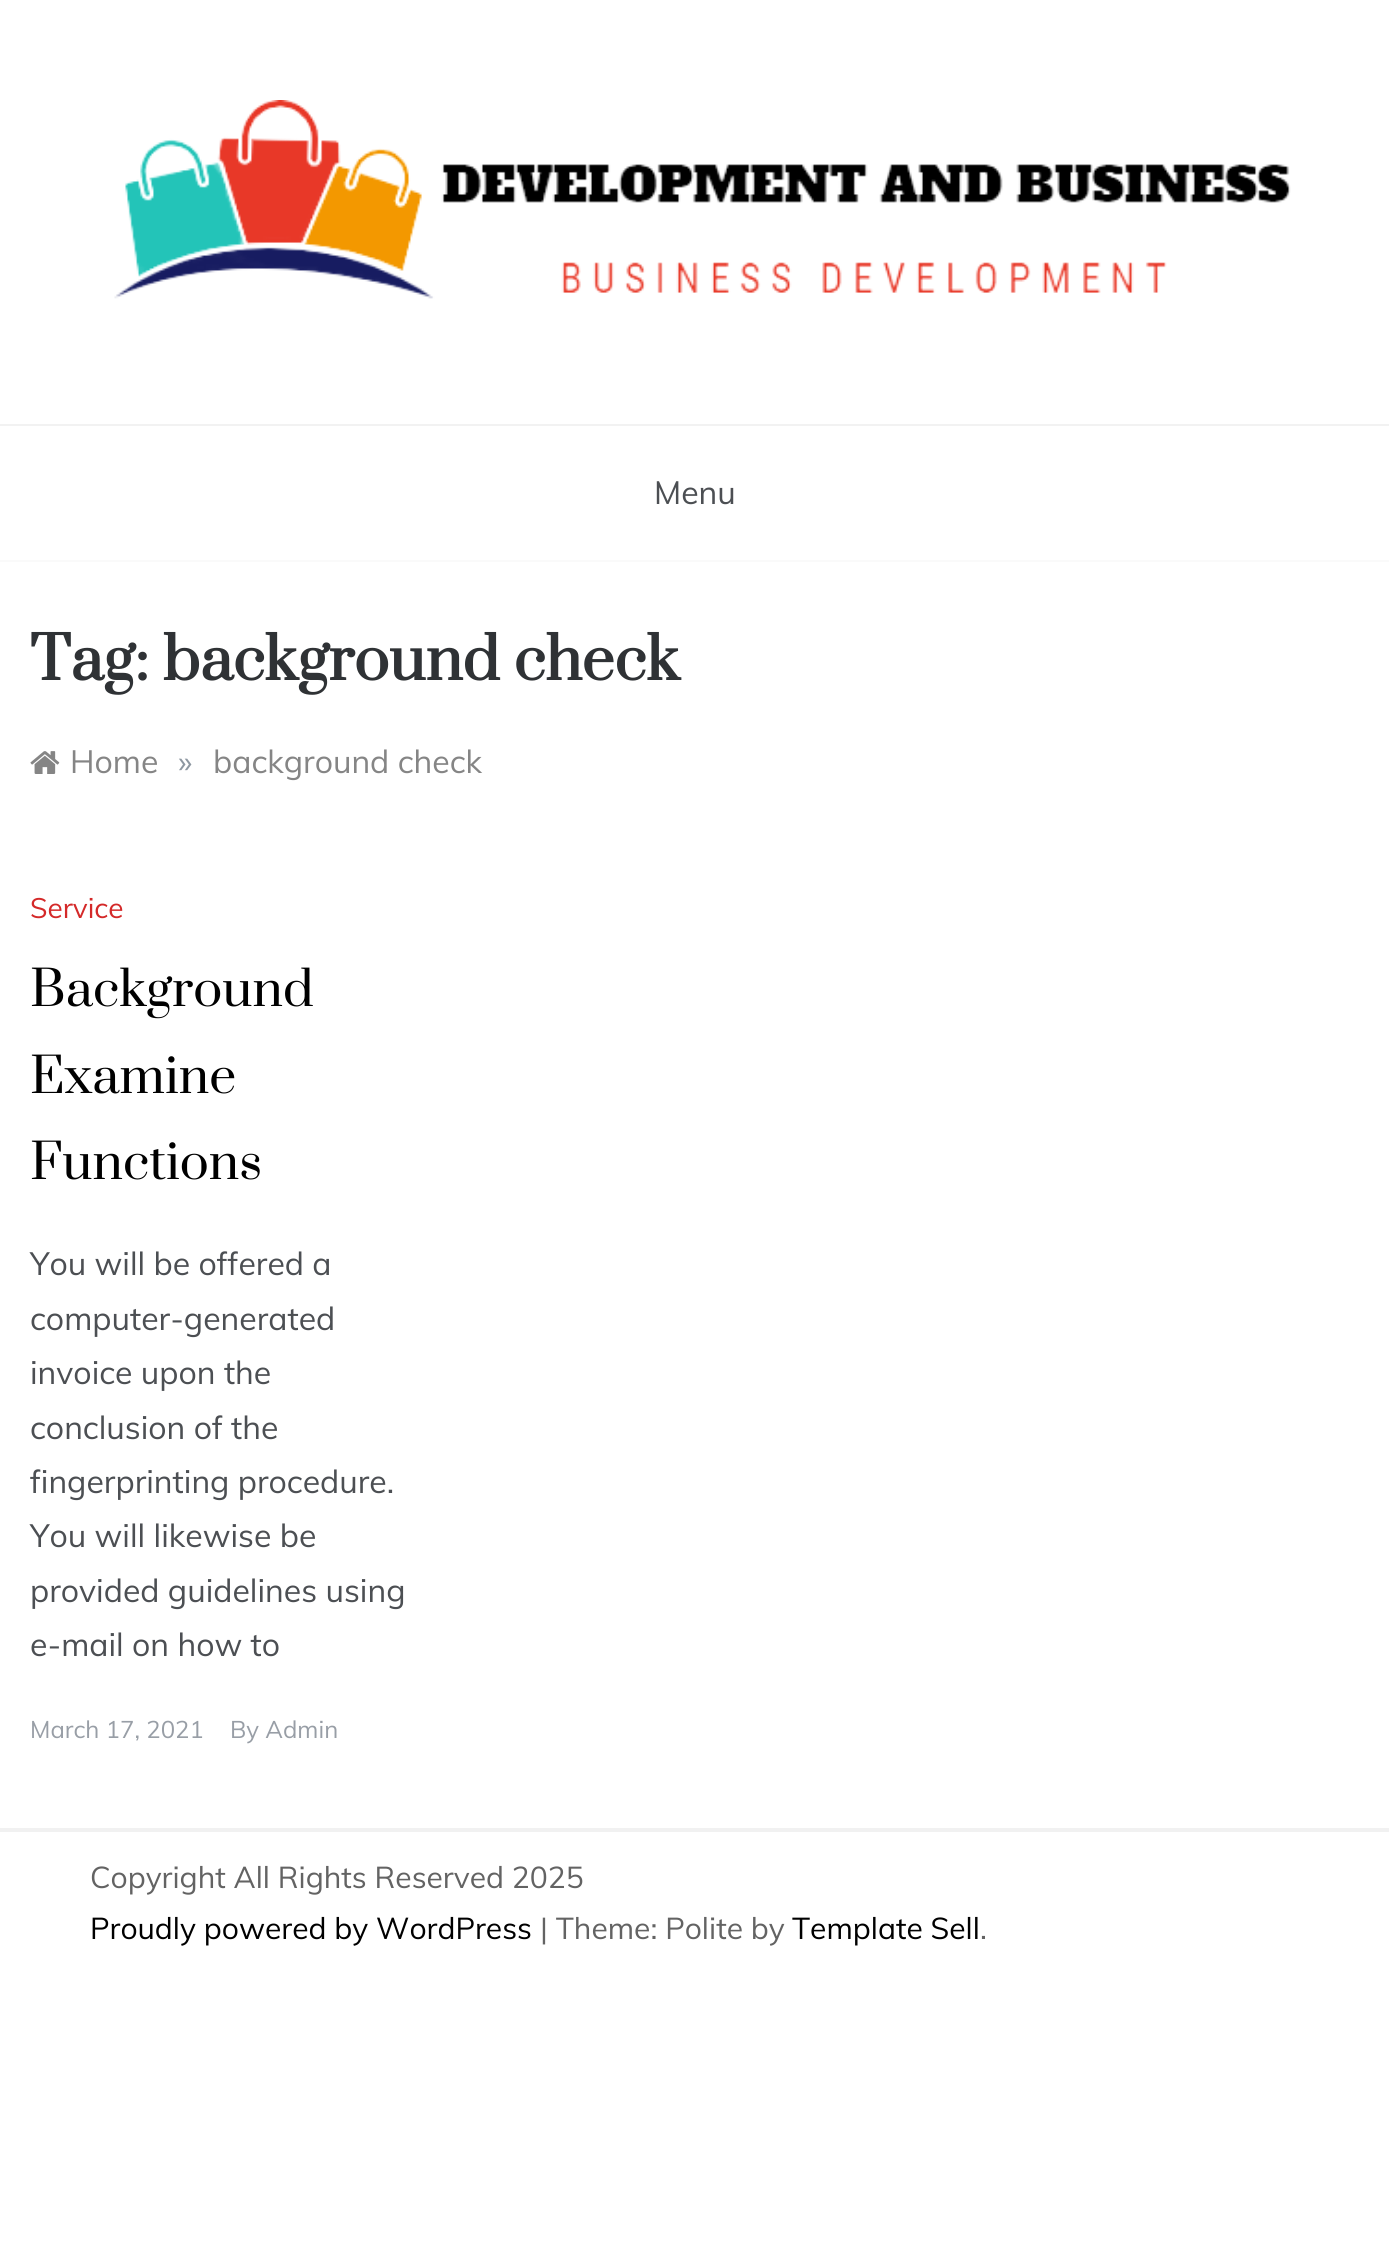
#include <cairo/cairo.h>
#include <math.h>
#include <stddef.h>

typedef struct { double x, y; const char *s; } line_t;
static cairo_t *cr;

static void rgb(unsigned color)
{
	cairo_set_source_rgb(cr, (color >> 16) / 255.0, (color >> 8 & 255) / 255.0, (color & 255) / 255.0);
}

static void image(const char *path, double x, double y, double w, double h)
{
	cairo_surface_t *image = cairo_image_surface_create_from_png(path);
	cairo_save(cr);
	cairo_set_source_surface(cr, image, x, y);
	cairo_rectangle(cr, x, y, w, h);
	cairo_fill(cr);
	cairo_restore(cr);
	cairo_surface_destroy(image);
}

int main(void) {
	cairo_surface_t *surface = cairo_image_surface_create(CAIRO_FORMAT_RGB24, 1389, 2255);
	cr = cairo_create(surface);
	cairo_font_options_t *options = cairo_font_options_create();
	cairo_font_options_set_hint_metrics(options, CAIRO_HINT_METRICS_OFF);
	cairo_font_options_set_hint_style(options, CAIRO_HINT_STYLE_NONE);
	cairo_set_font_options(cr, options);
	cairo_set_miter_limit(cr, 4);
	rgb(0xffffff);
	cairo_paint(cr);
	rgb(0xfafafa);
	cairo_rectangle(cr, 0, 560, 1389, 2);
	cairo_fill(cr);
	rgb(0xf2f2f2);
	cairo_rectangle(cr, 0, 424, 1389, 2);
	cairo_fill(cr);
	image("img/1.png", 114, 100, 1177, 199);
	image("img/2.png", 30, 751, 30, 23);
	rgb(0xf1f1f1);
	cairo_rectangle(cr, 0, 1828, 1389, 4);
	cairo_fill(cr);
	cairo_select_font_face(cr, "Muli", CAIRO_FONT_SLANT_NORMAL, CAIRO_FONT_WEIGHT_NORMAL);
	cairo_set_font_size(cr, 32);
	rgb(0x4c4f53);
	cairo_move_to(cr, 654, 504);
	cairo_show_text(cr, "Menu");
	cairo_select_font_face(cr, "Prata", CAIRO_FONT_SLANT_NORMAL, CAIRO_FONT_WEIGHT_BOLD);
	cairo_set_font_size(cr, 58);
	rgb(0x2f3235);
	cairo_move_to(cr, 30, 680);
	cairo_show_text(cr, "Tag: background check");
	cairo_select_font_face(cr, "Muli", CAIRO_FONT_SLANT_NORMAL, CAIRO_FONT_WEIGHT_NORMAL);
	cairo_set_font_size(cr, 32);
	rgb(0x858585);
	cairo_move_to(cr, 70, 773);
	cairo_show_text(cr, "Home");
	rgb(0x8d97a1);
	cairo_move_to(cr, 178, 773);
	cairo_show_text(cr, "»");
	rgb(0x858585);
	cairo_move_to(cr, 213, 773);
	cairo_show_text(cr, "background check");
	cairo_set_font_size(cr, 28);
	rgb(0xd42929);
	cairo_move_to(cr, 30, 918);
	cairo_show_text(cr, "Service");
	cairo_select_font_face(cr, "Prata", CAIRO_FONT_SLANT_NORMAL, CAIRO_FONT_WEIGHT_NORMAL);
	cairo_set_font_size(cr, 48);
	rgb(0x000000);
	{
		static const line_t items[] = {
			{30, 1006, "Background"},
			{30, 1093, "Examine"},
			{30, 1179, "Functions"},
		};
		for (size_t i = 0; i < sizeof items / sizeof *items; i++) {
			cairo_move_to(cr, items[i].x, items[i].y);
			cairo_show_text(cr, items[i].s);
		}
	}
	cairo_select_font_face(cr, "Muli", CAIRO_FONT_SLANT_NORMAL, CAIRO_FONT_WEIGHT_NORMAL);
	cairo_set_font_size(cr, 32);
	rgb(0x4c4f53);
	{
		static const line_t items[] = {
			{30, 1275, "You will be offered a"},
			{30, 1330, "computer-generated"},
			{30, 1384, "invoice upon the"},
			{30, 1439, "conclusion of the"},
			{30, 1493, "fingerprinting procedure."},
			{30, 1547, "You will likewise be"},
			{30, 1602, "provided guidelines using"},
			{30, 1656, "e-mail on how to"},
		};
		for (size_t i = 0; i < sizeof items / sizeof *items; i++) {
			cairo_move_to(cr, items[i].x, items[i].y);
			cairo_show_text(cr, items[i].s);
		}
	}
	cairo_set_font_size(cr, 24);
	rgb(0x989ea6);
	cairo_move_to(cr, 30, 1738);
	cairo_show_text(cr, "March 17, 2021");
	cairo_move_to(cr, 230, 1738);
	cairo_show_text(cr, "By Admin");
	cairo_set_font_size(cr, 30);
	rgb(0x636363);
	cairo_move_to(cr, 90, 1888);
	cairo_show_text(cr, "Copyright All Rights Reserved 2025");
	rgb(0x000000);
	cairo_move_to(cr, 90, 1939);
	cairo_show_text(cr, "Proudly powered by WordPress");
	rgb(0x636363);
	cairo_move_to(cr, 540, 1939);
	cairo_show_text(cr, "| Theme: Polite by");
	rgb(0x000000);
	cairo_move_to(cr, 792, 1939);
	cairo_show_text(cr, "Template Sell");
	rgb(0x636363);
	cairo_move_to(cr, 980, 1939);
	cairo_show_text(cr, ".");
	cairo_surface_write_to_png(surface, "page.png");
	cairo_font_options_destroy(options);
	cairo_destroy(cr);
	cairo_surface_destroy(surface);
	return 0;
}
